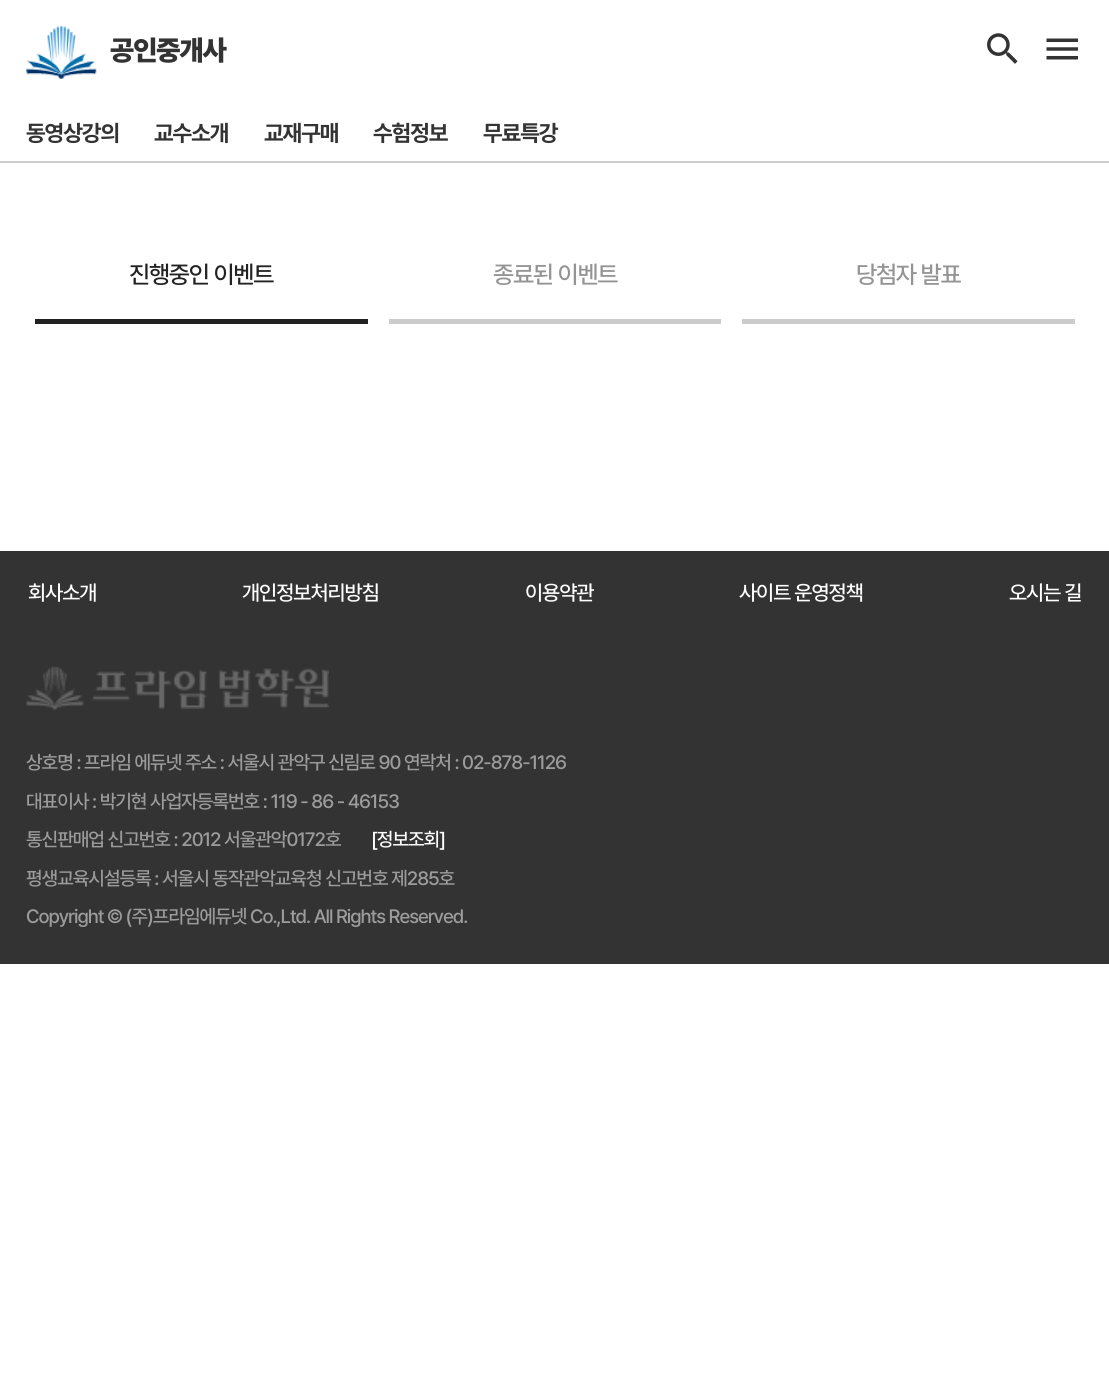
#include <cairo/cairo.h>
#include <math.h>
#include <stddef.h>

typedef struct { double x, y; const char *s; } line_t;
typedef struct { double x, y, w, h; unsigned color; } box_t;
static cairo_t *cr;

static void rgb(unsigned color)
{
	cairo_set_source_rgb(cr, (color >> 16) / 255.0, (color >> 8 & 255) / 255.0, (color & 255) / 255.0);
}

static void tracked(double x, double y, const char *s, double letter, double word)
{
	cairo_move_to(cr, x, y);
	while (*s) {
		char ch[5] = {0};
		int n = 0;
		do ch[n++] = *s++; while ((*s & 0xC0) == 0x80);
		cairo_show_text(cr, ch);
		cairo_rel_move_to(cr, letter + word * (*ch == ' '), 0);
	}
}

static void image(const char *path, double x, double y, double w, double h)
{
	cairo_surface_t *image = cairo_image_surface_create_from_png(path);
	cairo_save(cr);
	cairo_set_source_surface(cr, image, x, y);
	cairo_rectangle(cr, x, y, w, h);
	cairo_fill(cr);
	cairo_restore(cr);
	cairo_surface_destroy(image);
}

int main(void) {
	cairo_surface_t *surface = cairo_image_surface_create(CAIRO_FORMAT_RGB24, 1109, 1388);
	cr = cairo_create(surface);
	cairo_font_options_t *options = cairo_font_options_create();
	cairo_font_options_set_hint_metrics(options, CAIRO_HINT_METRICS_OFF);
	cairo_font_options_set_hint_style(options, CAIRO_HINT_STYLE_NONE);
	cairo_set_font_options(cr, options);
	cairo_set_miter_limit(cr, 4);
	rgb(0xffffff);
	cairo_paint(cr);
	image("img/1.png", 26, 26, 71, 53);
	image("img/2.png", 987, 33, 31, 31);
	image("img/3.png", 1046, 38, 32, 22);
	{
		static const box_t items[] = {
			{0, 161, 1109, 2, 0xcccccc},
			{35, 319, 333, 5, 0x222222},
			{389, 319, 332, 5, 0xcccccc},
			{742, 319, 333, 5, 0xcccccc},
			{0, 551, 1109, 413, 0x333333},
		};
		for (size_t i = 0; i < sizeof items / sizeof *items; i++) {
			rgb(items[i].color);
			cairo_rectangle(cr, items[i].x, items[i].y, items[i].w, items[i].h);
			cairo_fill(cr);
		}
	}
	image("img/4.png", 26, 666, 303, 45);
	cairo_select_font_face(cr, "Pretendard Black", CAIRO_FONT_SLANT_NORMAL, CAIRO_FONT_WEIGHT_NORMAL);
	cairo_set_font_size(cr, 28);
	tracked(110, 60, "공인중개사", -1.05, 0);
	cairo_select_font_face(cr, "Pretendard", CAIRO_FONT_SLANT_NORMAL, CAIRO_FONT_WEIGHT_BOLD);
	cairo_set_font_size(cr, 22.75);
	{
		static const line_t items[] = {
			{26, 141, "동영상강의"},
			{154, 141, "교수소개"},
			{264, 141, "교재구매"},
			{373, 141, "수험정보"},
			{483, 141, "무료특강"},
		};
		for (size_t i = 0; i < sizeof items / sizeof *items; i++) {
			tracked(items[i].x, items[i].y, items[i].s, -1.05, 0);
		}
	}
	cairo_select_font_face(cr, "Pretendard Medium", CAIRO_FONT_SLANT_NORMAL, CAIRO_FONT_WEIGHT_NORMAL);
	cairo_set_font_size(cr, 24.5);
	rgb(0x222222);
	tracked(129, 283, "진행중인 이벤트", -1.25, 0);
	rgb(0x949494);
	tracked(493, 283, "종료된 이벤트", -1.25, 0);
	tracked(856, 283, "당첨자 발표", -1.25, 0);
	cairo_set_font_size(cr, 21);
	rgb(0xffffff);
	{
		static const line_t items[] = {
			{28, 600, "회사소개"},
			{242, 600, "개인정보처리방침"},
			{525, 600, "이용약관"},
			{739, 600, "사이트 운영정책"},
			{1009, 600, "오시는 길"},
		};
		for (size_t i = 0; i < sizeof items / sizeof *items; i++) {
			tracked(items[i].x, items[i].y, items[i].s, -1.05, 0);
		}
	}
	cairo_set_font_size(cr, 19.25);
	rgb(0x9c9c9c);
	{
		static const line_t items[] = {
			{26, 769, "상호명 : 프라임 에듀넷 주소 : 서울시 관악구 신림로 90 연락처 : 02-878-1126"},
			{26, 808, "대표이사 : 박기현 사업자등록번호 : 119 - 86 - 46153"},
			{26, 846, "통신판매업 신고번호 : 2012 서울관악0172호"},
		};
		for (size_t i = 0; i < sizeof items / sizeof *items; i++) {
			tracked(items[i].x, items[i].y, items[i].s, -1.05, 0);
		}
	}
	rgb(0xffffff);
	tracked(371, 846, "[정보조회]", -1.05, 0);
	rgb(0x9c9c9c);
	tracked(26, 885, "평생교육시설등록 : 서울시 동작관악교육청 신고번호 제285호", -1.05, 0);
	tracked(26, 923, "Copyright © (주)프라임에듀넷 Co.,Ltd. All Rights Reserved.", -1.05, 0);
	cairo_surface_write_to_png(surface, "page.png");
	cairo_font_options_destroy(options);
	cairo_destroy(cr);
	cairo_surface_destroy(surface);
	return 0;
}
